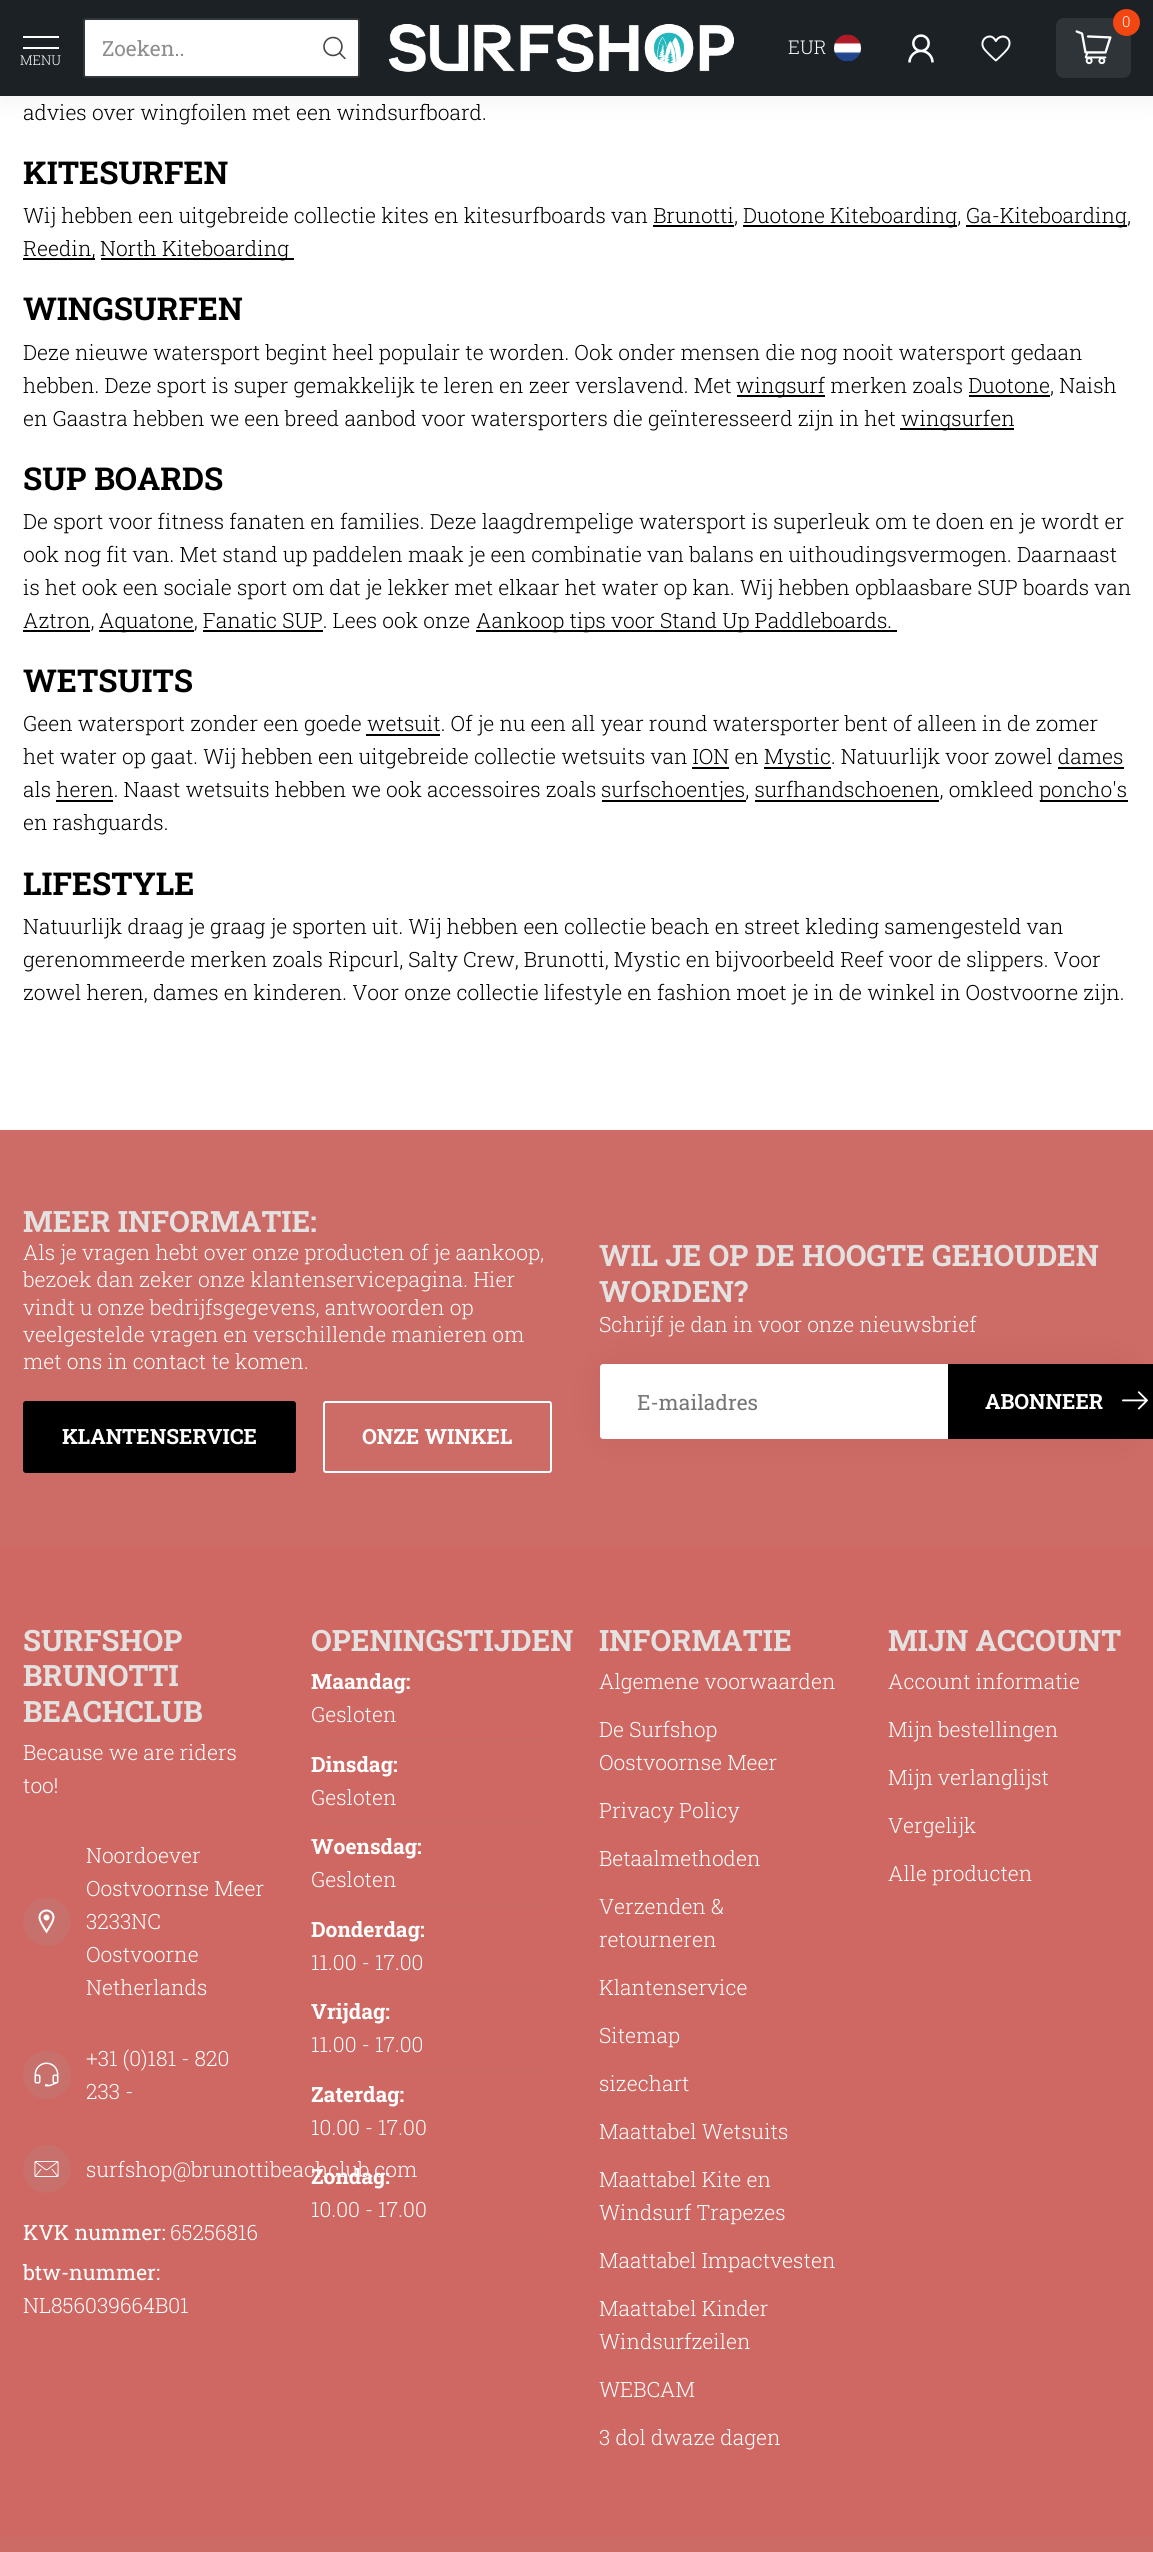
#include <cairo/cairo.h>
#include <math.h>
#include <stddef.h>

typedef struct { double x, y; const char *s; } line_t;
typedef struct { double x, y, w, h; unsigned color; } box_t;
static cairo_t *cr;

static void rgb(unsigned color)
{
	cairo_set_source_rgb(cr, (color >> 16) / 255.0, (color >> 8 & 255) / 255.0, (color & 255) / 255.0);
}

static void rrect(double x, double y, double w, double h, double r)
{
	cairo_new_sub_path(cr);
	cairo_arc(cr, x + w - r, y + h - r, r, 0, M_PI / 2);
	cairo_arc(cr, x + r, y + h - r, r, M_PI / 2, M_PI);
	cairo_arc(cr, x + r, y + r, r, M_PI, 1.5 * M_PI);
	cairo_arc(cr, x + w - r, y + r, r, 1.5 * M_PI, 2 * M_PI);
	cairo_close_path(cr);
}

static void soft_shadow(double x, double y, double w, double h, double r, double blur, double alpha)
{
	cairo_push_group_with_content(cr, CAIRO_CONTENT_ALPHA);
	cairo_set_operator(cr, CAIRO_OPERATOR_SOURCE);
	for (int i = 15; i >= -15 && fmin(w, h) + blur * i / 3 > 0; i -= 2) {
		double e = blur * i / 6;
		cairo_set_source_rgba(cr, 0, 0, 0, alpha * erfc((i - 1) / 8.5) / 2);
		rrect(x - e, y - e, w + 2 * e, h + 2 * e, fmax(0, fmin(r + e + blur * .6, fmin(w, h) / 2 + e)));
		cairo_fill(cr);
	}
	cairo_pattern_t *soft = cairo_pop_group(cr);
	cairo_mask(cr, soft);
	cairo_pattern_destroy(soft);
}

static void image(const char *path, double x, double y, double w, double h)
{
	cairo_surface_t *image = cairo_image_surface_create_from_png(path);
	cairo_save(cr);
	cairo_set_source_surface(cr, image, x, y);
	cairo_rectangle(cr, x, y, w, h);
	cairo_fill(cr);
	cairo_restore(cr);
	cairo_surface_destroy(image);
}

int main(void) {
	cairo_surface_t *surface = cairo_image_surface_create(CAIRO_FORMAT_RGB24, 1153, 2552);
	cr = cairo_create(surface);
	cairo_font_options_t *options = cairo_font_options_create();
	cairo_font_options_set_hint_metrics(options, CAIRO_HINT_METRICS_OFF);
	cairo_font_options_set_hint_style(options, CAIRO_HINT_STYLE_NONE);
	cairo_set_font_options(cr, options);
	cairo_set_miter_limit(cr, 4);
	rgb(0xffffff);
	cairo_paint(cr);
	rgb(0x000000);
	soft_shadow(0, -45, 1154, 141, 0, 15, 0.07);
	rgb(0x1b2125);
	cairo_rectangle(cr, 0, 0, 1153, 96);
	cairo_fill(cr);
	rgb(0xffffff);
	rrect(84, 19, 275, 58, 2);
	cairo_fill_preserve(cr);
	rgb(0x31373a);
	cairo_stroke(cr);
	image("img/1.png", 323, 36, 23, 24);
	rgb(0xffffff);
	cairo_rectangle(cr, 23, 36, 36, 2);
	cairo_fill(cr);
	cairo_rectangle(cr, 23, 47, 36, 2);
	cairo_fill(cr);
	image("img/2.png", 388, 24, 346, 48);
	rgb(0x2e3437);
	rrect(1056, 18, 75, 60, 8);
	cairo_fill(cr);
	rgb(0xf44611);
	cairo_arc(cr, 1126.5, 22.5, 13.5, 0, 2 * M_PI);
	cairo_fill(cr);
	image("img/3.png", 1075, 30, 37, 35);
	image("img/4.png", 834, 34, 27, 28);
	image("img/5.png", 908, 34, 26, 29);
	image("img/6.png", 981, 35, 30, 27);
	{
		static const box_t items[] = {
			{653, 225, 81, 2, 0x000000},
			{743, 225, 214, 2, 0x000000},
			{966, 225, 161, 2, 0x000000},
			{23, 258, 72, 2, 0x000000},
			{101, 258, 193, 2, 0x000000},
			{737, 395, 88, 2, 0x000000},
			{969, 395, 81, 2, 0x000000},
			{900, 428, 114, 2, 0x000000},
			{23, 630, 67, 2, 0x000000},
			{99, 630, 95, 2, 0x000000},
			{203, 630, 120, 2, 0x000000},
			{476, 630, 421, 2, 0x000000},
			{366, 734, 74, 2, 0x000000},
			{692, 767, 37, 2, 0x000000},
			{764, 767, 67, 2, 0x000000},
			{1058, 767, 66, 2, 0x000000},
			{56, 800, 57, 2, 0x000000},
			{602, 800, 144, 2, 0x000000},
			{755, 800, 184, 2, 0x000000},
			{1040, 800, 88, 2, 0x000000},
			{0, 1548, 1153, 989, 0xcf6863},
			{0, 1130, 1153, 418, 0xcd6b66},
		};
		for (size_t i = 0; i < sizeof items / sizeof *items; i++) {
			rgb(items[i].color);
			cairo_rectangle(cr, items[i].x, items[i].y, items[i].w, items[i].h);
			cairo_fill(cr);
		}
	}
	rgb(0x000000);
	rrect(23, 1401, 273, 72, 3);
	cairo_fill(cr);
	rrect(324, 1402, 227, 70, 2);
	rgb(0xffffff);
	cairo_stroke(cr);
	rgb(0x000000);
	soft_shadow(615, 1379, 501, 45, 0, 22.5, 0.1);
	rgb(0xffffff);
	cairo_new_path(cr);
	cairo_move_to(cr, 603, 1364);
	cairo_line_to(cr, 948, 1364);
	cairo_line_to(cr, 948, 1439);
	cairo_line_to(cr, 603, 1439);
	cairo_curve_to(cr, 601.5, 1439, 600, 1437.5, 600, 1436);
	cairo_line_to(cr, 600, 1367);
	cairo_curve_to(cr, 600, 1365.5, 601.5, 1364, 603, 1364);
	cairo_close_path(cr);
	cairo_fill(cr);
	rgb(0x000000);
	cairo_rectangle(cr, 948, 1364, 205, 75);
	cairo_fill(cr);
	image("img/7.png", 1122, 1391, 26, 19);
	rgb(0xc7706c);
	cairo_arc(cr, 47, 1922, 24, 0, 2 * M_PI);
	cairo_fill(cr);
	image("img/8.png", 38, 1909, 17, 25);
	cairo_arc(cr, 47, 2075, 24, 0, 2 * M_PI);
	cairo_fill(cr);
	image("img/9.png", 34, 2062, 25, 25);
	cairo_arc(cr, 47, 2169, 24, 0, 2 * M_PI);
	cairo_fill(cr);
	image("img/10.png", 34, 2161, 25, 16);
	{
		static const box_t items[] = {
			{311, 1739, 244, 2, 0xcc6b66},
			{311, 1821, 244, 2, 0xcc6b66},
			{311, 1904, 244, 2, 0xcc6b66},
			{311, 1986, 244, 2, 0xcc6b66},
			{311, 2069, 244, 2, 0xcc6b66},
			{311, 2151, 244, 2, 0xcc6b66},
			{311, 2234, 244, 2, 0xcc6b66},
			{0, 2537, 1153, 15, 0xcc6b66},
		};
		for (size_t i = 0; i < sizeof items / sizeof *items; i++) {
			rgb(items[i].color);
			cairo_rectangle(cr, items[i].x, items[i].y, items[i].w, items[i].h);
			cairo_fill(cr);
		}
	}
	cairo_select_font_face(cr, "Roboto Slab", CAIRO_FONT_SLANT_NORMAL, CAIRO_FONT_WEIGHT_NORMAL);
	cairo_set_font_size(cr, 21);
	rgb(0x8f8f8f);
	cairo_move_to(cr, 102, 56);
	cairo_show_text(cr, "Zoeken..");
	cairo_select_font_face(cr, "Roboto Slab Light", CAIRO_FONT_SLANT_NORMAL, CAIRO_FONT_WEIGHT_NORMAL);
	cairo_set_font_size(cr, 13.5);
	rgb(0xffffff);
	cairo_move_to(cr, 20, 65);
	cairo_show_text(cr, "MENU");
	cairo_set_font_size(cr, 15);
	cairo_move_to(cr, 1122, 27);
	cairo_show_text(cr, "0");
	cairo_set_font_size(cr, 19);
	cairo_move_to(cr, 788, 54);
	cairo_show_text(cr, "EUR");
	cairo_set_font_size(cr, 21);
	rgb(0x000000);
	cairo_move_to(cr, 23, 120);
	cairo_show_text(cr, "advies over wingfoilen met een windsurfboard.");
	cairo_select_font_face(cr, "Roboto Slab", CAIRO_FONT_SLANT_NORMAL, CAIRO_FONT_WEIGHT_BOLD);
	cairo_set_font_size(cr, 31.5);
	cairo_move_to(cr, 23, 184);
	cairo_show_text(cr, "KITESURFEN");
	cairo_select_font_face(cr, "Roboto Slab Light", CAIRO_FONT_SLANT_NORMAL, CAIRO_FONT_WEIGHT_NORMAL);
	cairo_set_font_size(cr, 21);
	{
		static const line_t items[] = {
			{23, 223, "Wij hebben een uitgebreide collectie kites en kitesurfboards van Brunotti,"},
			{743, 223, "Duotone Kiteboarding,"},
			{966, 223, "Ga-Kiteboarding,"},
			{23, 256, "Reedin,"},
			{100, 256, "North Kiteboarding"},
		};
		for (size_t i = 0; i < sizeof items / sizeof *items; i++) {
			cairo_move_to(cr, items[i].x, items[i].y);
			cairo_show_text(cr, items[i].s);
		}
	}
	cairo_select_font_face(cr, "Roboto Slab", CAIRO_FONT_SLANT_NORMAL, CAIRO_FONT_WEIGHT_BOLD);
	cairo_set_font_size(cr, 31.5);
	cairo_move_to(cr, 23, 320);
	cairo_show_text(cr, "WINGSURFEN");
	cairo_select_font_face(cr, "Roboto Slab Light", CAIRO_FONT_SLANT_NORMAL, CAIRO_FONT_WEIGHT_NORMAL);
	cairo_set_font_size(cr, 21);
	{
		static const line_t items[] = {
			{23, 360, "Deze nieuwe watersport begint heel populair te worden. Ook onder mensen die nog nooit watersport gedaan"},
			{23, 393, "hebben. Deze sport is super gemakkelijk te leren en zeer verslavend. Met"},
			{736, 393, "wingsurf merken zoals Duotone, Naish"},
			{23, 426, "en Gaastra hebben we een breed aanbod voor watersporters die geïnteresseerd zijn in het"},
			{901, 426, "wingsurfen"},
		};
		for (size_t i = 0; i < sizeof items / sizeof *items; i++) {
			cairo_move_to(cr, items[i].x, items[i].y);
			cairo_show_text(cr, items[i].s);
		}
	}
	cairo_select_font_face(cr, "Roboto Slab", CAIRO_FONT_SLANT_NORMAL, CAIRO_FONT_WEIGHT_BOLD);
	cairo_set_font_size(cr, 31.5);
	cairo_move_to(cr, 23, 490);
	cairo_show_text(cr, "SUP BOARDS");
	cairo_select_font_face(cr, "Roboto Slab Light", CAIRO_FONT_SLANT_NORMAL, CAIRO_FONT_WEIGHT_NORMAL);
	cairo_set_font_size(cr, 21);
	{
		static const line_t items[] = {
			{23, 529, "De sport voor fitness fanaten en families. Deze laagdrempelige watersport is superleuk om te doen en je wordt er"},
			{23, 562, "ook nog fit van. Met stand up paddelen maak je een combinatie van balans en uithoudingsvermogen. Daarnaast"},
			{23, 595, "is het ook een sociale sport om dat je lekker met elkaar het water op kan. Wij hebben opblaasbare SUP boards van"},
			{23, 628, "Aztron,"},
			{99, 628, "Aquatone, Fanatic SUP. Lees ook onze"},
			{476, 628, "Aankoop tips voor Stand Up Paddleboards."},
		};
		for (size_t i = 0; i < sizeof items / sizeof *items; i++) {
			cairo_move_to(cr, items[i].x, items[i].y);
			cairo_show_text(cr, items[i].s);
		}
	}
	cairo_select_font_face(cr, "Roboto Slab", CAIRO_FONT_SLANT_NORMAL, CAIRO_FONT_WEIGHT_BOLD);
	cairo_set_font_size(cr, 31.5);
	cairo_move_to(cr, 23, 692);
	cairo_show_text(cr, "WETSUITS");
	cairo_select_font_face(cr, "Roboto Slab Light", CAIRO_FONT_SLANT_NORMAL, CAIRO_FONT_WEIGHT_NORMAL);
	cairo_set_font_size(cr, 21);
	{
		static const line_t items[] = {
			{23, 731, "Geen watersport zonder een goede wetsuit. Of je nu een all year round watersporter bent of alleen in de zomer"},
			{23, 764, "het water op gaat. Wij hebben een uitgebreide collectie wetsuits van ION en"},
			{764, 764, "Mystic. Natuurlijk voor zowel dames"},
			{23, 797, "als heren. Naast wetsuits hebben we ook accessoires zoals"},
			{601, 797, "surfschoentjes, surfhandschoenen, omkleed"},
			{1039, 797, "poncho's"},
			{23, 830, "en rashguards."},
		};
		for (size_t i = 0; i < sizeof items / sizeof *items; i++) {
			cairo_move_to(cr, items[i].x, items[i].y);
			cairo_show_text(cr, items[i].s);
		}
	}
	cairo_select_font_face(cr, "Roboto Slab", CAIRO_FONT_SLANT_NORMAL, CAIRO_FONT_WEIGHT_BOLD);
	cairo_set_font_size(cr, 31.5);
	cairo_move_to(cr, 23, 895);
	cairo_show_text(cr, "LIFESTYLE");
	cairo_select_font_face(cr, "Roboto Slab Light", CAIRO_FONT_SLANT_NORMAL, CAIRO_FONT_WEIGHT_NORMAL);
	cairo_set_font_size(cr, 21);
	{
		static const line_t items[] = {
			{23, 934, "Natuurlijk draag je graag je sporten uit. Wij hebben een collectie beach en street kleding samengesteld van"},
			{23, 967, "gerenommeerde merken zoals Ripcurl, Salty Crew, Brunotti, Mystic en bijvoorbeeld Reef voor de slippers. Voor"},
			{23, 1000, "zowel heren, dames en kinderen. Voor onze collectie lifestyle en fashion moet je in de winkel in Oostvoorne zijn."},
		};
		for (size_t i = 0; i < sizeof items / sizeof *items; i++) {
			cairo_move_to(cr, items[i].x, items[i].y);
			cairo_show_text(cr, items[i].s);
		}
	}
	cairo_select_font_face(cr, "Roboto Slab", CAIRO_FONT_SLANT_NORMAL, CAIRO_FONT_WEIGHT_BOLD);
	cairo_set_font_size(cr, 29.4);
	rgb(0xe4e1e1);
	cairo_move_to(cr, 23, 1232);
	cairo_show_text(cr, "MEER INFORMATIE:");
	cairo_select_font_face(cr, "Roboto Slab Light", CAIRO_FONT_SLANT_NORMAL, CAIRO_FONT_WEIGHT_NORMAL);
	cairo_set_font_size(cr, 21);
	rgb(0xffffff);
	{
		static const line_t items[] = {
			{23, 1260, "Als je vragen hebt over onze producten of je aankoop,"},
			{23, 1287, "bezoek dan zeker onze klantenservicepagina. Hier"},
			{23, 1315, "vindt u onze bedrijfsgegevens, antwoorden op"},
			{23, 1342, "veelgestelde vragen en verschillende manieren om"},
			{23, 1369, "met ons in contact te komen."},
		};
		for (size_t i = 0; i < sizeof items / sizeof *items; i++) {
			cairo_move_to(cr, items[i].x, items[i].y);
			cairo_show_text(cr, items[i].s);
		}
	}
	cairo_select_font_face(cr, "Roboto Slab", CAIRO_FONT_SLANT_NORMAL, CAIRO_FONT_WEIGHT_BOLD);
	cairo_move_to(cr, 62, 1444);
	cairo_show_text(cr, "KLANTENSERVICE");
	cairo_move_to(cr, 362, 1444);
	cairo_show_text(cr, "ONZE WINKEL");
	cairo_set_font_size(cr, 29.4);
	rgb(0xe4e1e1);
	cairo_move_to(cr, 599, 1266);
	cairo_show_text(cr, "WIL JE OP DE HOOGTE GEHOUDEN");
	cairo_move_to(cr, 599, 1302);
	cairo_show_text(cr, "WORDEN?");
	cairo_select_font_face(cr, "Roboto Slab Light", CAIRO_FONT_SLANT_NORMAL, CAIRO_FONT_WEIGHT_NORMAL);
	cairo_set_font_size(cr, 21);
	rgb(0xffffff);
	cairo_move_to(cr, 599, 1332);
	cairo_show_text(cr, "Schrijf je dan in voor onze nieuwsbrief");
	cairo_save(cr);
	cairo_rectangle(cr, 638, 1388, 273, 28);
	cairo_clip(cr);
	cairo_select_font_face(cr, "Roboto Slab", CAIRO_FONT_SLANT_NORMAL, CAIRO_FONT_WEIGHT_NORMAL);
	rgb(0x757575);
	cairo_move_to(cr, 637, 1410);
	cairo_show_text(cr, "E-mailadres");
	cairo_restore(cr);
	cairo_select_font_face(cr, "Roboto Slab", CAIRO_FONT_SLANT_NORMAL, CAIRO_FONT_WEIGHT_BOLD);
	cairo_move_to(cr, 985, 1409);
	cairo_show_text(cr, "ABONNEER");
	cairo_set_font_size(cr, 29.4);
	rgb(0xe4e1e1);
	{
		static const line_t items[] = {
			{23, 1651, "SURFSHOP"},
			{23, 1686, "BRUNOTTI"},
			{23, 1722, "BEACHCLUB"},
		};
		for (size_t i = 0; i < sizeof items / sizeof *items; i++) {
			cairo_move_to(cr, items[i].x, items[i].y);
			cairo_show_text(cr, items[i].s);
		}
	}
	cairo_select_font_face(cr, "Roboto Slab Light", CAIRO_FONT_SLANT_NORMAL, CAIRO_FONT_WEIGHT_NORMAL);
	cairo_set_font_size(cr, 21);
	rgb(0xffffff);
	{
		static const line_t items[] = {
			{23, 1760, "Because we are riders"},
			{23, 1793, "too!"},
			{86, 1863, "Noordoever"},
			{86, 1896, "Oostvoornse Meer"},
			{86, 1929, "3233NC"},
			{86, 1962, "Oostvoorne"},
			{86, 1995, "Netherlands"},
			{86, 2066, "+31 (0)181 - 820"},
			{86, 2099, "233 -"},
			{86, 2177, "surfshop@brunottibeachclub.com"},
		};
		for (size_t i = 0; i < sizeof items / sizeof *items; i++) {
			cairo_move_to(cr, items[i].x, items[i].y);
			cairo_show_text(cr, items[i].s);
		}
	}
	cairo_select_font_face(cr, "Roboto Slab", CAIRO_FONT_SLANT_NORMAL, CAIRO_FONT_WEIGHT_NORMAL);
	cairo_move_to(cr, 23, 2240);
	cairo_show_text(cr, "KVK nummer:");
	cairo_select_font_face(cr, "Roboto Slab Light", CAIRO_FONT_SLANT_NORMAL, CAIRO_FONT_WEIGHT_NORMAL);
	cairo_move_to(cr, 170, 2240);
	cairo_show_text(cr, "65256816");
	cairo_select_font_face(cr, "Roboto Slab", CAIRO_FONT_SLANT_NORMAL, CAIRO_FONT_WEIGHT_NORMAL);
	cairo_move_to(cr, 23, 2280);
	cairo_show_text(cr, "btw-nummer:");
	cairo_select_font_face(cr, "Roboto Slab Light", CAIRO_FONT_SLANT_NORMAL, CAIRO_FONT_WEIGHT_NORMAL);
	cairo_move_to(cr, 23, 2313);
	cairo_show_text(cr, "NL856039664B01");
	cairo_select_font_face(cr, "Roboto Slab", CAIRO_FONT_SLANT_NORMAL, CAIRO_FONT_WEIGHT_BOLD);
	cairo_set_font_size(cr, 29.4);
	rgb(0xe4e1e1);
	cairo_move_to(cr, 311, 1651);
	cairo_show_text(cr, "OPENINGSTIJDEN");
	cairo_set_font_size(cr, 21);
	rgb(0xffffff);
	cairo_move_to(cr, 311, 1689);
	cairo_show_text(cr, "Maandag:");
	cairo_select_font_face(cr, "Roboto Slab Light", CAIRO_FONT_SLANT_NORMAL, CAIRO_FONT_WEIGHT_NORMAL);
	cairo_move_to(cr, 311, 1722);
	cairo_show_text(cr, "Gesloten");
	cairo_select_font_face(cr, "Roboto Slab", CAIRO_FONT_SLANT_NORMAL, CAIRO_FONT_WEIGHT_BOLD);
	cairo_move_to(cr, 311, 1772);
	cairo_show_text(cr, "Dinsdag:");
	cairo_select_font_face(cr, "Roboto Slab Light", CAIRO_FONT_SLANT_NORMAL, CAIRO_FONT_WEIGHT_NORMAL);
	cairo_move_to(cr, 311, 1805);
	cairo_show_text(cr, "Gesloten");
	cairo_select_font_face(cr, "Roboto Slab", CAIRO_FONT_SLANT_NORMAL, CAIRO_FONT_WEIGHT_BOLD);
	cairo_move_to(cr, 311, 1854);
	cairo_show_text(cr, "Woensdag:");
	cairo_select_font_face(cr, "Roboto Slab Light", CAIRO_FONT_SLANT_NORMAL, CAIRO_FONT_WEIGHT_NORMAL);
	cairo_move_to(cr, 311, 1887);
	cairo_show_text(cr, "Gesloten");
	cairo_select_font_face(cr, "Roboto Slab", CAIRO_FONT_SLANT_NORMAL, CAIRO_FONT_WEIGHT_BOLD);
	cairo_move_to(cr, 311, 1937);
	cairo_show_text(cr, "Donderdag:");
	cairo_select_font_face(cr, "Roboto Slab Light", CAIRO_FONT_SLANT_NORMAL, CAIRO_FONT_WEIGHT_NORMAL);
	cairo_move_to(cr, 311, 1970);
	cairo_show_text(cr, "11.00 - 17.00");
	cairo_select_font_face(cr, "Roboto Slab", CAIRO_FONT_SLANT_NORMAL, CAIRO_FONT_WEIGHT_BOLD);
	cairo_move_to(cr, 311, 2019);
	cairo_show_text(cr, "Vrijdag:");
	cairo_select_font_face(cr, "Roboto Slab Light", CAIRO_FONT_SLANT_NORMAL, CAIRO_FONT_WEIGHT_NORMAL);
	cairo_move_to(cr, 311, 2052);
	cairo_show_text(cr, "11.00 - 17.00");
	cairo_select_font_face(cr, "Roboto Slab", CAIRO_FONT_SLANT_NORMAL, CAIRO_FONT_WEIGHT_BOLD);
	cairo_move_to(cr, 311, 2102);
	cairo_show_text(cr, "Zaterdag:");
	cairo_select_font_face(cr, "Roboto Slab Light", CAIRO_FONT_SLANT_NORMAL, CAIRO_FONT_WEIGHT_NORMAL);
	cairo_move_to(cr, 311, 2135);
	cairo_show_text(cr, "10.00 - 17.00");
	cairo_select_font_face(cr, "Roboto Slab", CAIRO_FONT_SLANT_NORMAL, CAIRO_FONT_WEIGHT_BOLD);
	cairo_move_to(cr, 311, 2184);
	cairo_show_text(cr, "Zondag:");
	cairo_select_font_face(cr, "Roboto Slab Light", CAIRO_FONT_SLANT_NORMAL, CAIRO_FONT_WEIGHT_NORMAL);
	cairo_move_to(cr, 311, 2217);
	cairo_show_text(cr, "10.00 - 17.00");
	cairo_select_font_face(cr, "Roboto Slab", CAIRO_FONT_SLANT_NORMAL, CAIRO_FONT_WEIGHT_BOLD);
	cairo_set_font_size(cr, 29.4);
	rgb(0xe4e1e1);
	cairo_move_to(cr, 599, 1651);
	cairo_show_text(cr, "INFORMATIE");
	cairo_select_font_face(cr, "Roboto Slab Light", CAIRO_FONT_SLANT_NORMAL, CAIRO_FONT_WEIGHT_NORMAL);
	cairo_set_font_size(cr, 21);
	rgb(0xffffff);
	{
		static const line_t items[] = {
			{599, 1689, "Algemene voorwaarden"},
			{599, 1737, "De Surfshop"},
			{599, 1770, "Oostvoornse Meer"},
			{599, 1818, "Privacy Policy"},
			{599, 1866, "Betaalmethoden"},
			{599, 1914, "Verzenden &"},
			{599, 1947, "retourneren"},
			{599, 1995, "Klantenservice"},
			{599, 2043, "Sitemap"},
			{599, 2091, "sizechart"},
			{599, 2139, "Maattabel Wetsuits"},
			{599, 2187, "Maattabel Kite en"},
			{599, 2220, "Windsurf Trapezes"},
			{599, 2268, "Maattabel Impactvesten"},
			{599, 2316, "Maattabel Kinder"},
			{599, 2349, "Windsurfzeilen"},
			{599, 2397, "WEBCAM"},
			{599, 2445, "3 dol dwaze dagen"},
		};
		for (size_t i = 0; i < sizeof items / sizeof *items; i++) {
			cairo_move_to(cr, items[i].x, items[i].y);
			cairo_show_text(cr, items[i].s);
		}
	}
	cairo_select_font_face(cr, "Roboto Slab", CAIRO_FONT_SLANT_NORMAL, CAIRO_FONT_WEIGHT_BOLD);
	cairo_set_font_size(cr, 29.4);
	rgb(0xe4e1e1);
	cairo_move_to(cr, 888, 1651);
	cairo_show_text(cr, "MIJN ACCOUNT");
	cairo_select_font_face(cr, "Roboto Slab Light", CAIRO_FONT_SLANT_NORMAL, CAIRO_FONT_WEIGHT_NORMAL);
	cairo_set_font_size(cr, 21);
	rgb(0xffffff);
	{
		static const line_t items[] = {
			{888, 1689, "Account informatie"},
			{888, 1737, "Mijn bestellingen"},
			{888, 1785, "Mijn verlanglijst"},
			{888, 1833, "Vergelijk"},
			{888, 1881, "Alle producten"},
		};
		for (size_t i = 0; i < sizeof items / sizeof *items; i++) {
			cairo_move_to(cr, items[i].x, items[i].y);
			cairo_show_text(cr, items[i].s);
		}
	}
	cairo_surface_write_to_png(surface, "page.png");
	cairo_font_options_destroy(options);
	cairo_destroy(cr);
	cairo_surface_destroy(surface);
	return 0;
}
